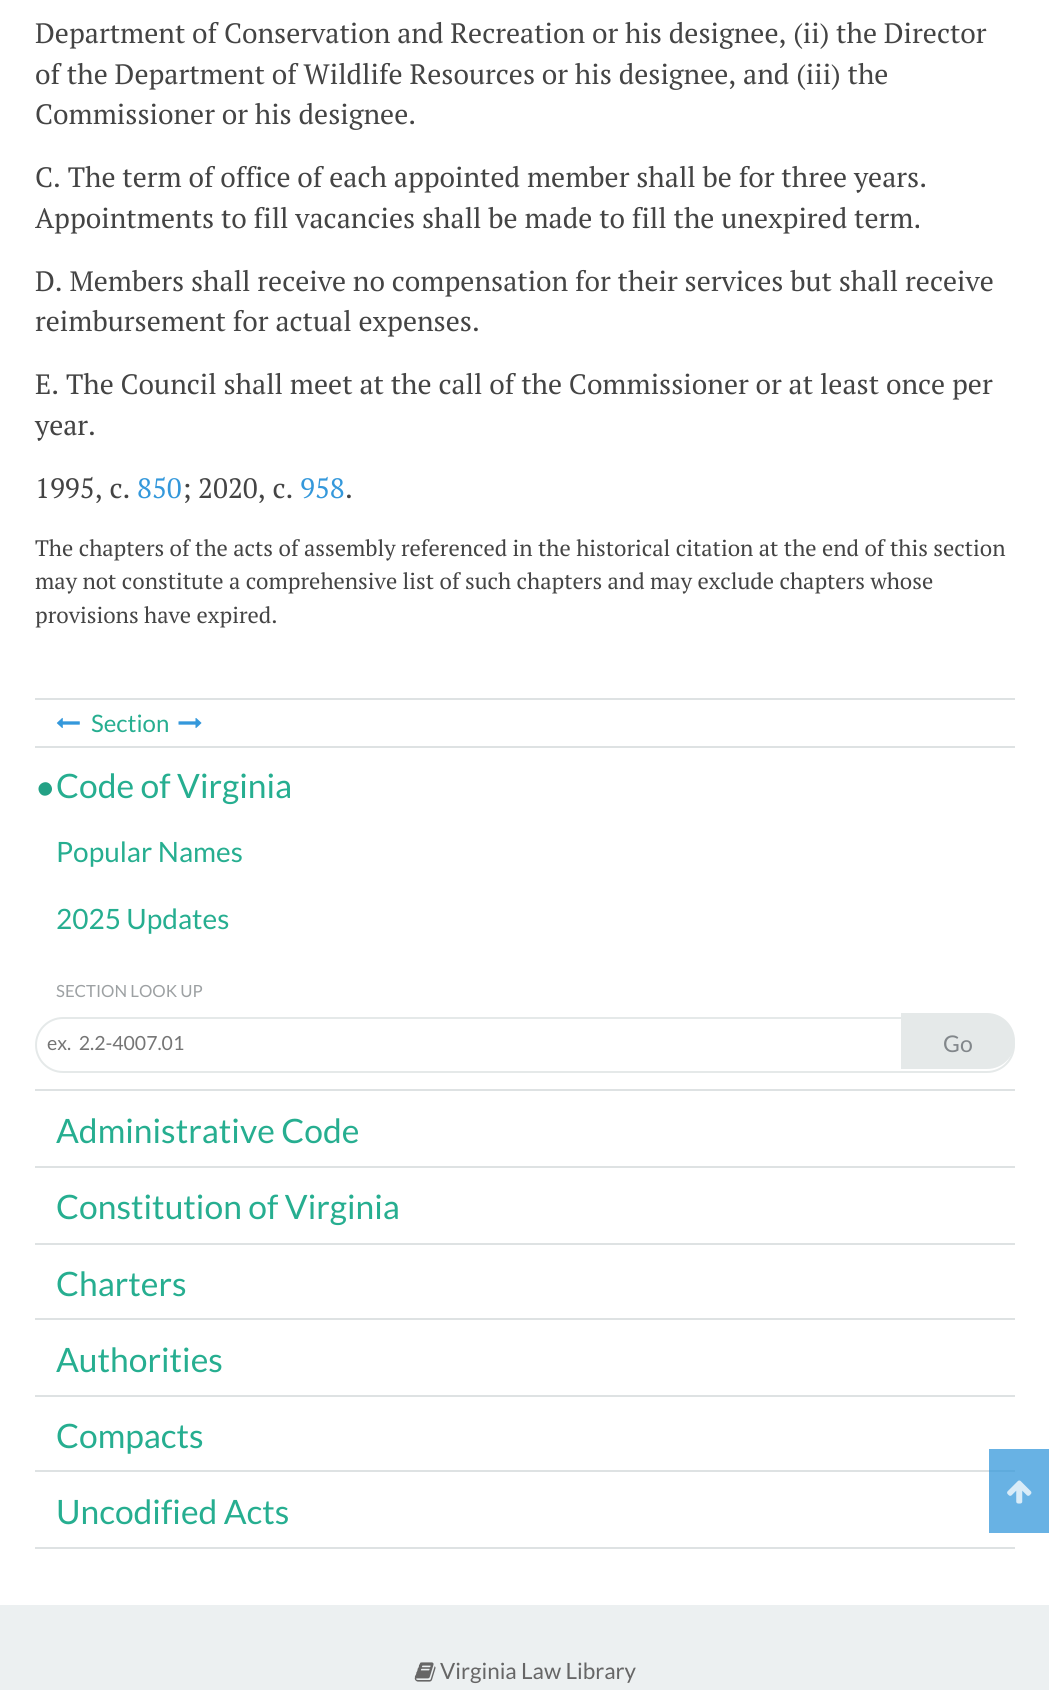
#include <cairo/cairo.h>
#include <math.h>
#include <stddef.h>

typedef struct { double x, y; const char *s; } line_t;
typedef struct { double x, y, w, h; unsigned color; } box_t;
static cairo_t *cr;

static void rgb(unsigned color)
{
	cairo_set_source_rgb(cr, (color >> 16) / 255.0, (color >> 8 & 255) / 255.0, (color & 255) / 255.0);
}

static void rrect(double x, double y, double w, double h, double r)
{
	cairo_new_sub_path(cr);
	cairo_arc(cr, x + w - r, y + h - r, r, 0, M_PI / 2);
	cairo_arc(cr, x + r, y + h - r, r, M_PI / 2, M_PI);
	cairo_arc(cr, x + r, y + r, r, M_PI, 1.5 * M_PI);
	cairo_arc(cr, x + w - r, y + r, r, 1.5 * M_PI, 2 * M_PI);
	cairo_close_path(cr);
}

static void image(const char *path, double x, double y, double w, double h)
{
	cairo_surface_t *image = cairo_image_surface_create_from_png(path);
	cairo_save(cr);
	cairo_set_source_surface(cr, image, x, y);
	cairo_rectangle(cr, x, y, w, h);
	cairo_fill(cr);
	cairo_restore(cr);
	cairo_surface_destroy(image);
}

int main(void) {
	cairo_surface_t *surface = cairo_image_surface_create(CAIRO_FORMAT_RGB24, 1049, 1690);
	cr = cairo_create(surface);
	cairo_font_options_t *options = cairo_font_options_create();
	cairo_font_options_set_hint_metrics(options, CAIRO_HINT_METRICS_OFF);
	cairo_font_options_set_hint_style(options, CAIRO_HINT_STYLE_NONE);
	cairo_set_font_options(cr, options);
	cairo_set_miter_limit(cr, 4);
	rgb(0xffffff);
	cairo_paint(cr);
	rgb(0x68b2e4);
	cairo_rectangle(cr, 989, 1449, 60, 84);
	cairo_fill(cr);
	rgb(0xdee2e3);
	cairo_rectangle(cr, 35, 698, 980, 2);
	cairo_fill(cr);
	image("img/1.png", 56, 717, 24, 11);
	image("img/2.png", 178, 718, 24, 10);
	image("img/3.png", 1007, 1480, 25, 24);
	cairo_rectangle(cr, 35, 746, 980, 2);
	cairo_fill(cr);
	rgb(0x23a185);
	cairo_new_path(cr);
	cairo_move_to(cr, 51, 785.5);
	cairo_curve_to(cr, 55.5, 793, 44, 800, 39.5, 792.5);
	cairo_curve_to(cr, 35, 784.5, 46.5, 778, 51, 785.5);
	cairo_close_path(cr);
	cairo_fill(cr);
	rrect(36, 1018, 978, 54, 27);
	rgb(0xe5e9e9);
	cairo_stroke(cr);
	cairo_new_path(cr);
	cairo_move_to(cr, 901, 1013);
	cairo_line_to(cr, 987, 1013);
	cairo_curve_to(cr, 1002.5, 1013, 1015, 1025.5, 1015, 1041);
	cairo_curve_to(cr, 1015, 1056.5, 1002.5, 1069, 987, 1069);
	cairo_line_to(cr, 901, 1069);
	cairo_close_path(cr);
	cairo_fill(cr);
	{
		static const box_t items[] = {
			{35, 1089, 980, 2, 0xdee2e3},
			{35, 1166, 980, 2, 0xdee2e3},
			{35, 1243, 980, 2, 0xdee2e3},
			{35, 1318, 980, 2, 0xdee2e3},
			{35, 1395, 980, 2, 0xdee2e3},
			{35, 1470, 954, 2, 0xdee2e3},
			{989, 1470, 26, 2, 0x5fabdd},
			{35, 1547, 980, 2, 0xdee2e3},
			{0, 1605, 1049, 85, 0xecf0f1},
		};
		for (size_t i = 0; i < sizeof items / sizeof *items; i++) {
			rgb(items[i].color);
			cairo_rectangle(cr, items[i].x, items[i].y, items[i].w, items[i].h);
			cairo_fill(cr);
		}
	}
	image("img/4.png", 414, 1662, 22, 20);
	cairo_select_font_face(cr, "PT Serif", CAIRO_FONT_SLANT_NORMAL, CAIRO_FONT_WEIGHT_NORMAL);
	cairo_set_font_size(cr, 28);
	rgb(0x444444);
	{
		static const line_t items[] = {
			{35, 43, "Department of Conservation and Recreation or his designee, (ii) the Director"},
			{35, 84, "of the Department of Wildlife Resources or his designee, and (iii) the"},
			{35, 124, "Commissioner or his designee."},
			{35, 187, "C. The term of office of each appointed member shall be for three years."},
			{35, 228, "Appointments to fill vacancies shall be made to fill the unexpired term."},
			{35, 291, "D. Members shall receive no compensation for their services but shall receive"},
			{35, 331, "reimbursement for actual expenses."},
			{35, 394, "E. The Council shall meet at the call of the Commissioner or at least once per"},
			{35, 435, "year."},
			{35, 498, "1995, c."},
		};
		for (size_t i = 0; i < sizeof items / sizeof *items; i++) {
			cairo_move_to(cr, items[i].x, items[i].y);
			cairo_show_text(cr, items[i].s);
		}
	}
	rgb(0x3498db);
	cairo_move_to(cr, 137, 498);
	cairo_show_text(cr, "850");
	rgb(0x444444);
	cairo_move_to(cr, 182, 498);
	cairo_show_text(cr, "; 2020, c.");
	rgb(0x3498db);
	cairo_move_to(cr, 300, 498);
	cairo_show_text(cr, "958");
	rgb(0x444444);
	cairo_move_to(cr, 345, 498);
	cairo_show_text(cr, ".");
	cairo_set_font_size(cr, 22.4);
	{
		static const line_t items[] = {
			{35, 556, "The chapters of the acts of assembly referenced in the historical citation at the end of this section"},
			{35, 589, "may not constitute a comprehensive list of such chapters and may exclude chapters whose"},
			{35, 623, "provisions have expired."},
		};
		for (size_t i = 0; i < sizeof items / sizeof *items; i++) {
			cairo_move_to(cr, items[i].x, items[i].y);
			cairo_show_text(cr, items[i].s);
		}
	}
	cairo_select_font_face(cr, "Lato", CAIRO_FONT_SLANT_NORMAL, CAIRO_FONT_WEIGHT_NORMAL);
	cairo_set_font_size(cr, 24);
	rgb(0x26ae90);
	cairo_move_to(cr, 91, 732);
	cairo_show_text(cr, "Section");
	cairo_set_font_size(cr, 33.6);
	cairo_move_to(cr, 56, 798);
	cairo_show_text(cr, "Code of Virginia");
	cairo_set_font_size(cr, 28);
	cairo_move_to(cr, 56, 862);
	cairo_show_text(cr, "Popular Names");
	cairo_move_to(cr, 56, 929);
	cairo_show_text(cr, "2025 Updates");
	cairo_set_font_size(cr, 16.75);
	rgb(0x9da1a3);
	cairo_move_to(cr, 56, 997);
	cairo_show_text(cr, "SECTION LOOK UP");
	cairo_set_font_size(cr, 19.5);
	rgb(0x757575);
	cairo_move_to(cr, 47, 1050);
	cairo_show_text(cr, "ex.  2.2-4007.01");
	cairo_set_font_size(cr, 23);
	rgb(0x82878b);
	cairo_move_to(cr, 943, 1052);
	cairo_show_text(cr, "Go");
	cairo_set_font_size(cr, 33.6);
	rgb(0x26ae90);
	{
		static const line_t items[] = {
			{56, 1143, "Administrative Code"},
			{56, 1219, "Constitution of Virginia"},
			{56, 1296, "Charters"},
			{56, 1372, "Authorities"},
			{56, 1448, "Compacts"},
			{56, 1524, "Uncodified Acts"},
		};
		for (size_t i = 0; i < sizeof items / sizeof *items; i++) {
			cairo_move_to(cr, items[i].x, items[i].y);
			cairo_show_text(cr, items[i].s);
		}
	}
	cairo_set_font_size(cr, 22.4);
	rgb(0x666666);
	cairo_move_to(cr, 440, 1679);
	cairo_show_text(cr, "Virginia Law Library");
	cairo_surface_write_to_png(surface, "page.png");
	cairo_font_options_destroy(options);
	cairo_destroy(cr);
	cairo_surface_destroy(surface);
	return 0;
}
